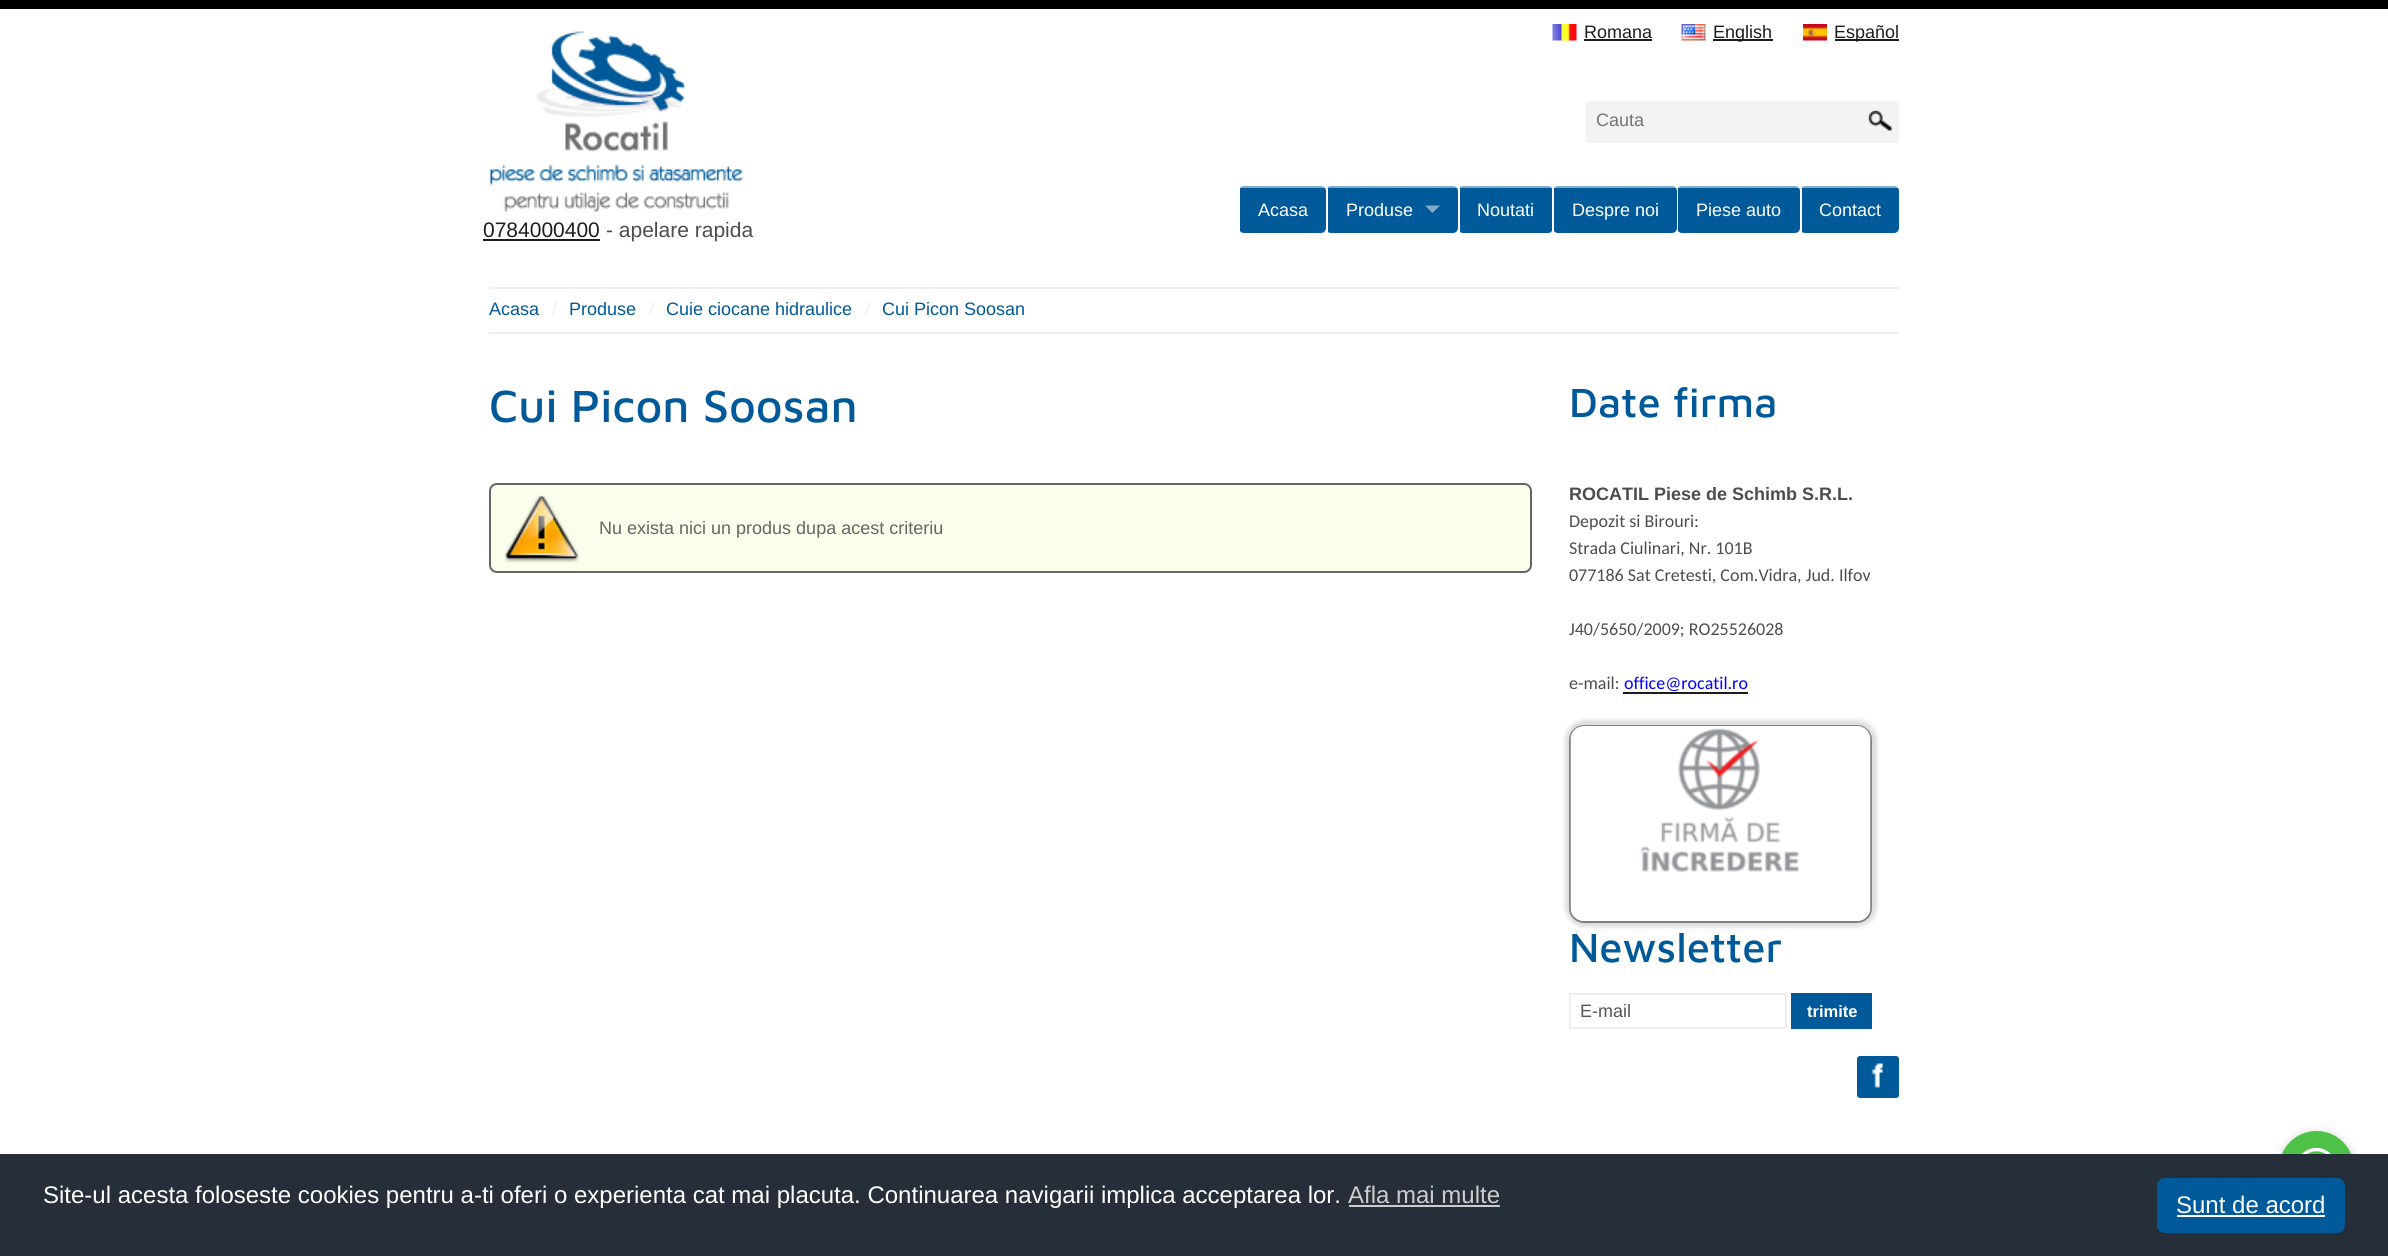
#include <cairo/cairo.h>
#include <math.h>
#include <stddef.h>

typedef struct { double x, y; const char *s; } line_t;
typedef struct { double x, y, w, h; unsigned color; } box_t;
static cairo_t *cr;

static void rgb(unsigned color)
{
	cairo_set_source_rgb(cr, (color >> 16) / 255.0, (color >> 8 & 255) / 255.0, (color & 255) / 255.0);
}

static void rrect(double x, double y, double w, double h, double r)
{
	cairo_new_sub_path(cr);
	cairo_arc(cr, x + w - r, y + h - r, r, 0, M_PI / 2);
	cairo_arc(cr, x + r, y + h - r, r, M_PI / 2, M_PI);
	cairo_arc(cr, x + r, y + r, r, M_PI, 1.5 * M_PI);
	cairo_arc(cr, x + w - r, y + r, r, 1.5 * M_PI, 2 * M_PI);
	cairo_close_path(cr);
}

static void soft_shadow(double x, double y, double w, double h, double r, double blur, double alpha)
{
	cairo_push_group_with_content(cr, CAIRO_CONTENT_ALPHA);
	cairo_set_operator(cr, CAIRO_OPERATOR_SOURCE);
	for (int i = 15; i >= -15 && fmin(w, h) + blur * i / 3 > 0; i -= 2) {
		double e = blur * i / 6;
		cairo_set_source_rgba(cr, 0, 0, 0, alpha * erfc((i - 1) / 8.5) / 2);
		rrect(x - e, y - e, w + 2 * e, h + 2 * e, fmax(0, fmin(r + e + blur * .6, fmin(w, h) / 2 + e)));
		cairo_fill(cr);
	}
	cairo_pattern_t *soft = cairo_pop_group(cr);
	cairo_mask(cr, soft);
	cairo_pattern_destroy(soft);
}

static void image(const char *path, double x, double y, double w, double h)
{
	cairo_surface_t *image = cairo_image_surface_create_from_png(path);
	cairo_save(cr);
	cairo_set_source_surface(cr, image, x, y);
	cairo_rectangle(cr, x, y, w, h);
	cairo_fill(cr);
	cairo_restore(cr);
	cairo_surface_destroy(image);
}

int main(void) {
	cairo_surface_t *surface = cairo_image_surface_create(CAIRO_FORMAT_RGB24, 2388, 1256);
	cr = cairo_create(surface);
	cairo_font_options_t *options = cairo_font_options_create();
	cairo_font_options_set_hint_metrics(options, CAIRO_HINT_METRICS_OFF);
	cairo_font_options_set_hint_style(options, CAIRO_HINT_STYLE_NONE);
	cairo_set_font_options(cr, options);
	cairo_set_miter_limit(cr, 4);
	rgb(0xffffff);
	cairo_paint(cr);
	rgb(0x000000);
	cairo_rectangle(cr, 0, 0, 2388, 9);
	cairo_fill(cr);
	image("img/1.png", 490, 31, 253, 181);
	image("img/2.png", 1552, 24, 25, 17);
	rgb(0x1d1d1d);
	cairo_rectangle(cr, 1584, 39, 68, 2);
	cairo_fill(cr);
	image("img/3.png", 1681, 24, 25, 17);
	cairo_rectangle(cr, 1713, 39, 60, 2);
	cairo_fill(cr);
	image("img/4.png", 1803, 24, 24, 17);
	cairo_rectangle(cr, 1835, 39, 64, 2);
	cairo_fill(cr);
	rgb(0xf3f3f3);
	rrect(1586, 101, 313, 42, 3);
	cairo_fill(cr);
	cairo_new_path(cr);
	cairo_move_to(cr, 1854, 101);
	cairo_line_to(cr, 1896, 101);
	cairo_curve_to(cr, 1897.5, 101, 1899, 102.5, 1899, 104);
	cairo_line_to(cr, 1899, 140);
	cairo_curve_to(cr, 1899, 141.5, 1897.5, 143, 1896, 143);
	cairo_line_to(cr, 1854, 143);
	cairo_close_path(cr);
	cairo_fill(cr);
	image("img/5.png", 1868, 110, 24, 21);
	rgb(0x005999);
	rrect(1239, 186, 87, 47, 5);
	cairo_fill(cr);
	cairo_set_source_rgba(cr, 1, 1, 1, 0.5);
	cairo_new_path(cr);
	cairo_move_to(cr, 1239, 186);
	cairo_line_to(cr, 1326, 186);
	cairo_line_to(cr, 1326, 188);
	cairo_line_to(cr, 1240, 188);
	cairo_close_path(cr);
	cairo_fill(cr);
	rgb(0xffffff);
	cairo_new_path(cr);
	cairo_move_to(cr, 1239, 232);
	cairo_line_to(cr, 1239, 186);
	cairo_line_to(cr, 1240, 188);
	cairo_line_to(cr, 1240, 232);
	cairo_close_path(cr);
	cairo_fill(cr);
	rgb(0x005999);
	rrect(1326, 186, 132, 47, 5);
	cairo_fill(cr);
	cairo_set_source_rgba(cr, 1, 1, 1, 0.5);
	cairo_new_path(cr);
	cairo_move_to(cr, 1326, 186);
	cairo_line_to(cr, 1458, 186);
	cairo_line_to(cr, 1458, 188);
	cairo_line_to(cr, 1328, 188);
	cairo_close_path(cr);
	cairo_fill(cr);
	rgb(0xffffff);
	cairo_new_path(cr);
	cairo_move_to(cr, 1326, 232);
	cairo_line_to(cr, 1326, 186);
	cairo_line_to(cr, 1328, 188);
	cairo_line_to(cr, 1328, 232);
	cairo_close_path(cr);
	cairo_fill(cr);
	rgb(0x80accc);
	cairo_new_path(cr);
	cairo_move_to(cr, 1425, 205.5);
	cairo_line_to(cr, 1440, 205.5);
	cairo_line_to(cr, 1432.5, 213);
	cairo_close_path(cr);
	cairo_fill(cr);
	rgb(0x005999);
	rrect(1458, 186, 95, 47, 5);
	cairo_fill(cr);
	cairo_set_source_rgba(cr, 1, 1, 1, 0.5);
	cairo_new_path(cr);
	cairo_move_to(cr, 1458, 186);
	cairo_line_to(cr, 1552, 186);
	cairo_line_to(cr, 1552, 188);
	cairo_line_to(cr, 1460, 188);
	cairo_close_path(cr);
	cairo_fill(cr);
	rgb(0xffffff);
	cairo_new_path(cr);
	cairo_move_to(cr, 1458, 232);
	cairo_line_to(cr, 1458, 186);
	cairo_line_to(cr, 1460, 188);
	cairo_line_to(cr, 1460, 232);
	cairo_close_path(cr);
	cairo_fill(cr);
	rgb(0x005999);
	rrect(1553, 186, 124, 47, 5);
	cairo_fill(cr);
	cairo_set_source_rgba(cr, 1, 1, 1, 0.5);
	cairo_new_path(cr);
	cairo_move_to(cr, 1552, 186);
	cairo_line_to(cr, 1677, 186);
	cairo_line_to(cr, 1677, 188);
	cairo_line_to(cr, 1554, 188);
	cairo_close_path(cr);
	cairo_fill(cr);
	rgb(0xffffff);
	cairo_new_path(cr);
	cairo_move_to(cr, 1552, 232);
	cairo_line_to(cr, 1552, 186);
	cairo_line_to(cr, 1554, 188);
	cairo_line_to(cr, 1554, 232);
	cairo_close_path(cr);
	cairo_fill(cr);
	rgb(0x005999);
	rrect(1677, 186, 123, 47, 5);
	cairo_fill(cr);
	cairo_set_source_rgba(cr, 1, 1, 1, 0.5);
	cairo_new_path(cr);
	cairo_move_to(cr, 1677, 186);
	cairo_line_to(cr, 1800, 186);
	cairo_line_to(cr, 1800, 188);
	cairo_line_to(cr, 1678, 188);
	cairo_close_path(cr);
	cairo_fill(cr);
	rgb(0xffffff);
	cairo_new_path(cr);
	cairo_move_to(cr, 1677, 232);
	cairo_line_to(cr, 1677, 186);
	cairo_line_to(cr, 1678, 188);
	cairo_line_to(cr, 1678, 232);
	cairo_close_path(cr);
	cairo_fill(cr);
	rgb(0x005999);
	rrect(1800, 186, 99, 47, 5);
	cairo_fill(cr);
	cairo_set_source_rgba(cr, 1, 1, 1, 0.5);
	cairo_new_path(cr);
	cairo_move_to(cr, 1800, 186);
	cairo_line_to(cr, 1899, 186);
	cairo_line_to(cr, 1899, 188);
	cairo_line_to(cr, 1802, 188);
	cairo_close_path(cr);
	cairo_fill(cr);
	rgb(0xffffff);
	cairo_new_path(cr);
	cairo_move_to(cr, 1800, 232);
	cairo_line_to(cr, 1800, 186);
	cairo_line_to(cr, 1802, 188);
	cairo_line_to(cr, 1802, 232);
	cairo_close_path(cr);
	cairo_fill(cr);
	{
		static const box_t items[] = {
			{483, 239, 117, 2, 0x1d1d1d},
			{489, 287, 1410, 2, 0xeeeeee},
			{489, 332, 1410, 2, 0xeeeeee},
		};
		for (size_t i = 0; i < sizeof items / sizeof *items; i++) {
			rgb(items[i].color);
			cairo_rectangle(cr, items[i].x, items[i].y, items[i].w, items[i].h);
			cairo_fill(cr);
		}
	}
	rgb(0xfbfeeb);
	rrect(489, 483, 1043, 90, 8);
	cairo_fill(cr);
	image("img/6.png", 505, 495, 75, 68);
	rrect(490, 484, 1041, 88, 7);
	rgb(0x666666);
	cairo_stroke(cr);
	rgb(0x1d1d1d);
	cairo_rectangle(cr, 1623, 692, 125, 2);
	cairo_fill(cr);
	rgb(0xdddddd);
	soft_shadow(1565, 720, 312, 207, 20, 2, 1);
	rrect(1570, 726, 301, 196, 14);
	rgb(0x808080);
	cairo_stroke(cr);
	image("img/7.png", 1570, 726, 301, 195);
	cairo_rectangle(cr, 1570, 994, 216, 34);
	rgb(0xeeeeee);
	cairo_stroke(cr);
	rgb(0x005999);
	cairo_rectangle(cr, 1791, 993, 81, 36);
	cairo_fill(cr);
	rrect(1857, 1056, 42, 42, 3);
	cairo_fill(cr);
	image("img/8.png", 1871, 1063, 12, 25);
	rgb(0x888888);
	soft_shadow(2279, 1133, 75, 75, 37.5, 5, 0.4);
	rgb(0x4dc247);
	cairo_arc(cr, 2316.5, 1168.5, 37.5, 0, 2 * M_PI);
	cairo_fill(cr);
	image("img/9.png", 2302, 1147, 29, 7);
	rgb(0x252e39);
	cairo_rectangle(cr, 0, 1154, 2388, 102);
	cairo_fill(cr);
	rgb(0xcccccc);
	cairo_rectangle(cr, 1349, 1205, 151, 2);
	cairo_fill(cr);
	rgb(0x005999);
	rrect(2157, 1178, 188, 55, 8);
	cairo_fill(cr);
	rgb(0xffffff);
	cairo_rectangle(cr, 2177, 1215, 148, 2);
	cairo_fill(cr);
	cairo_select_font_face(cr, "Liberation Sans", CAIRO_FONT_SLANT_NORMAL, CAIRO_FONT_WEIGHT_NORMAL);
	cairo_set_font_size(cr, 18);
	rgb(0x1d1d1d);
	{
		static const line_t items[] = {
			{1584, 38, "Romana"},
			{1713, 38, "English"},
			{1834, 38, "Español"},
		};
		for (size_t i = 0; i < sizeof items / sizeof *items; i++) {
			cairo_move_to(cr, items[i].x, items[i].y);
			cairo_show_text(cr, items[i].s);
		}
	}
	rgb(0x757575);
	cairo_move_to(cr, 1596, 126);
	cairo_show_text(cr, "Cauta");
	rgb(0xffffff);
	{
		static const line_t items[] = {
			{1258, 216, "Acasa"},
			{1346, 216, "Produse"},
			{1477, 216, "Noutati"},
			{1572, 216, "Despre noi"},
			{1696, 216, "Piese auto"},
			{1819, 216, "Contact"},
		};
		for (size_t i = 0; i < sizeof items / sizeof *items; i++) {
			cairo_move_to(cr, items[i].x, items[i].y);
			cairo_show_text(cr, items[i].s);
		}
	}
	cairo_set_font_size(cr, 21);
	rgb(0x1d1d1d);
	cairo_move_to(cr, 483, 237);
	cairo_show_text(cr, "0784000400");
	rgb(0x4d4d4d);
	cairo_move_to(cr, 606, 237);
	cairo_show_text(cr, "- apelare rapida");
	cairo_set_font_size(cr, 18);
	rgb(0x005999);
	cairo_move_to(cr, 489, 315);
	cairo_show_text(cr, "Acasa");
	rgb(0xeeeeee);
	cairo_move_to(cr, 552, 315);
	cairo_show_text(cr, "/");
	rgb(0x005999);
	cairo_move_to(cr, 569, 315);
	cairo_show_text(cr, "Produse");
	rgb(0xeeeeee);
	cairo_move_to(cr, 649, 315);
	cairo_show_text(cr, "/");
	rgb(0x005999);
	cairo_move_to(cr, 666, 315);
	cairo_show_text(cr, "Cuie ciocane hidraulice");
	rgb(0xeeeeee);
	cairo_move_to(cr, 865, 315);
	cairo_show_text(cr, "/");
	rgb(0x005999);
	cairo_move_to(cr, 882, 315);
	cairo_show_text(cr, "Cui Picon Soosan");
	cairo_select_font_face(cr, "Maven Pro Medium", CAIRO_FONT_SLANT_NORMAL, CAIRO_FONT_WEIGHT_NORMAL);
	cairo_set_font_size(cr, 46.5);
	cairo_move_to(cr, 489, 422);
	cairo_show_text(cr, "Cui Picon Soosan");
	cairo_select_font_face(cr, "Liberation Sans", CAIRO_FONT_SLANT_NORMAL, CAIRO_FONT_WEIGHT_NORMAL);
	cairo_set_font_size(cr, 18);
	rgb(0x666666);
	cairo_move_to(cr, 599, 534);
	cairo_show_text(cr, "Nu exista nici un produs dupa acest criteriu");
	cairo_select_font_face(cr, "Maven Pro Medium", CAIRO_FONT_SLANT_NORMAL, CAIRO_FONT_WEIGHT_NORMAL);
	cairo_set_font_size(cr, 42);
	rgb(0x005999);
	cairo_move_to(cr, 1569, 417);
	cairo_show_text(cr, "Date firma");
	cairo_select_font_face(cr, "Liberation Sans", CAIRO_FONT_SLANT_NORMAL, CAIRO_FONT_WEIGHT_BOLD);
	cairo_set_font_size(cr, 18);
	rgb(0x4d4d4d);
	cairo_move_to(cr, 1569, 500);
	cairo_show_text(cr, "ROCATIL Piese de Schimb S.R.L.");
	cairo_select_font_face(cr, "Carlito", CAIRO_FONT_SLANT_NORMAL, CAIRO_FONT_WEIGHT_NORMAL);
	{
		static const line_t items[] = {
			{1569, 527, "Depozit si Birouri:"},
			{1569, 554, "Strada Ciulinari, Nr. 101B"},
			{1569, 581, "077186 Sat Cretesti, Com.Vidra, Jud. Ilfov"},
			{1569, 635, "J40/5650/2009; RO25526028"},
			{1569, 689, "e-mail:"},
		};
		for (size_t i = 0; i < sizeof items / sizeof *items; i++) {
			cairo_move_to(cr, items[i].x, items[i].y);
			cairo_show_text(cr, items[i].s);
		}
	}
	rgb(0x0000ff);
	cairo_move_to(cr, 1624, 689);
	cairo_show_text(cr, "office@rocatil.ro");
	cairo_select_font_face(cr, "Maven Pro Medium", CAIRO_FONT_SLANT_NORMAL, CAIRO_FONT_WEIGHT_NORMAL);
	cairo_set_font_size(cr, 42);
	rgb(0x005999);
	cairo_move_to(cr, 1569, 962);
	cairo_show_text(cr, "Newsletter");
	cairo_select_font_face(cr, "Liberation Sans", CAIRO_FONT_SLANT_NORMAL, CAIRO_FONT_WEIGHT_NORMAL);
	cairo_set_font_size(cr, 18);
	rgb(0x555555);
	cairo_move_to(cr, 1580, 1017);
	cairo_show_text(cr, "E-mail");
	cairo_select_font_face(cr, "Liberation Sans", CAIRO_FONT_SLANT_NORMAL, CAIRO_FONT_WEIGHT_BOLD);
	cairo_set_font_size(cr, 16.5);
	rgb(0xffffff);
	cairo_move_to(cr, 1807, 1017);
	cairo_show_text(cr, "trimite");
	cairo_select_font_face(cr, "Liberation Sans", CAIRO_FONT_SLANT_NORMAL, CAIRO_FONT_WEIGHT_NORMAL);
	cairo_set_font_size(cr, 24);
	cairo_move_to(cr, 43, 1203);
	cairo_show_text(cr, "Site-ul acesta foloseste cookies pentru a-ti oferi o experienta cat mai placuta. Continuarea navigarii implica acceptarea lor.");
	rgb(0xcccccc);
	cairo_move_to(cr, 1348, 1203);
	cairo_show_text(cr, "Afla mai multe");
	rgb(0xffffff);
	cairo_move_to(cr, 2176, 1213);
	cairo_show_text(cr, "Sunt de acord");
	cairo_surface_write_to_png(surface, "page.png");
	cairo_font_options_destroy(options);
	cairo_destroy(cr);
	cairo_surface_destroy(surface);
	return 0;
}
